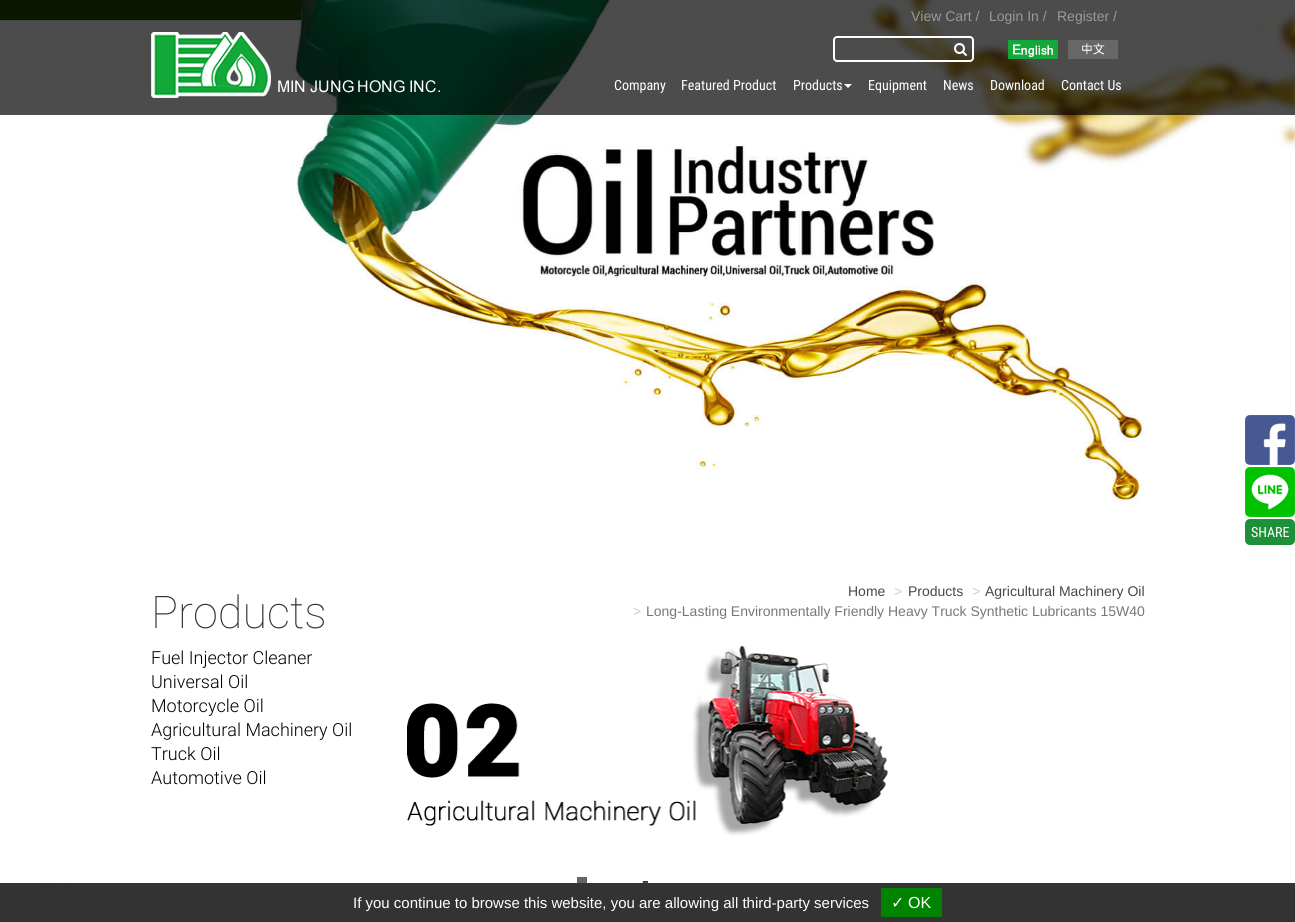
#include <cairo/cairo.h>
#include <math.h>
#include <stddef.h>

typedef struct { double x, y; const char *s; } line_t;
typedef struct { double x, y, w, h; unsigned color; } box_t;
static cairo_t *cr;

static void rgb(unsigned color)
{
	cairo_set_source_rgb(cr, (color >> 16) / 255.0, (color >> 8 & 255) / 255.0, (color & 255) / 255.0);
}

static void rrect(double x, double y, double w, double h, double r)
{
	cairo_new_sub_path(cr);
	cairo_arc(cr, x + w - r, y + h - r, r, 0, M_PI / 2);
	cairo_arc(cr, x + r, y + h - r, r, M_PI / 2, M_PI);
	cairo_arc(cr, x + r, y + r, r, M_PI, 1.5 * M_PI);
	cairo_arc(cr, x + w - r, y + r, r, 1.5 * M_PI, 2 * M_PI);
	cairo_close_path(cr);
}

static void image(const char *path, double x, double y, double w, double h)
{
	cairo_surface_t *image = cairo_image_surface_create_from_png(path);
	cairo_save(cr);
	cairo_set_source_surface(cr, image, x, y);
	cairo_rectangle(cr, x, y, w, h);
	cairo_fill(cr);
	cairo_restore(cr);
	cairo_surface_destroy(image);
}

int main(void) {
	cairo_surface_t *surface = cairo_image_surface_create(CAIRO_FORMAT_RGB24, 1295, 922);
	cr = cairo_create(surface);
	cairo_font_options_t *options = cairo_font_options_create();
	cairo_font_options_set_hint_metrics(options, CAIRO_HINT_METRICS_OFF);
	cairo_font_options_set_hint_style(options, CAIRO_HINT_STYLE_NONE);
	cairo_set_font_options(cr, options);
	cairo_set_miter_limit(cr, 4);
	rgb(0xffffff);
	cairo_paint(cr);
	image("img/1.png", 16, 880, 56, 3);
	image("img/2.png", 0, 0, 1295, 502);
	cairo_set_source_rgba(cr, 0, 0, 0, 0.7);
	cairo_rectangle(cr, 0, 0, 1295, 115);
	cairo_fill(cr);
	image("img/3.png", 151, 32, 289, 66);
	rgb(0xffffff);
	cairo_set_fill_rule(cr, CAIRO_FILL_RULE_EVEN_ODD);
	cairo_new_path(cr);
	cairo_move_to(cr, 954, 36);
	cairo_line_to(cr, 970, 36);
	cairo_curve_to(cr, 972, 36, 974, 38, 974, 40);
	cairo_line_to(cr, 974, 58);
	cairo_curve_to(cr, 974, 60, 972, 62, 970, 62);
	cairo_line_to(cr, 954, 62);
	cairo_close_path(cr);
	cairo_move_to(cr, 954, 38);
	cairo_line_to(cr, 970, 38);
	cairo_curve_to(cr, 971, 38, 972, 39, 972, 40);
	cairo_line_to(cr, 972, 58);
	cairo_curve_to(cr, 972, 59, 971, 60, 970, 60);
	cairo_line_to(cr, 954, 60);
	cairo_close_path(cr);
	cairo_fill(cr);
	cairo_set_source_rgba(cr, 0, 0, 0, 0.07);
	cairo_set_fill_rule(cr, CAIRO_FILL_RULE_WINDING);
	cairo_new_path(cr);
	cairo_move_to(cr, 837, 39);
	cairo_line_to(cr, 955, 39);
	cairo_line_to(cr, 955, 38);
	cairo_line_to(cr, 837, 38);
	cairo_curve_to(cr, 835, 38, 835, 40, 835, 41);
	cairo_curve_to(cr, 835, 40, 836, 39, 837, 39);
	cairo_close_path(cr);
	cairo_fill(cr);
	image("img/4.png", 954, 43, 13, 13);
	rgb(0xffffff);
	cairo_set_fill_rule(cr, CAIRO_FILL_RULE_EVEN_ODD);
	cairo_new_path(cr);
	cairo_move_to(cr, 837, 36);
	cairo_line_to(cr, 955, 36);
	cairo_line_to(cr, 955, 62);
	cairo_line_to(cr, 837, 62);
	cairo_curve_to(cr, 835, 62, 833, 60, 833, 58);
	cairo_line_to(cr, 833, 40);
	cairo_curve_to(cr, 833, 38, 835, 36, 837, 36);
	cairo_close_path(cr);
	cairo_move_to(cr, 837, 38);
	cairo_line_to(cr, 955, 38);
	cairo_line_to(cr, 955, 60);
	cairo_line_to(cr, 837, 60);
	cairo_curve_to(cr, 836, 60, 835, 59, 835, 58);
	cairo_line_to(cr, 835, 40);
	cairo_curve_to(cr, 835, 39, 836, 38, 837, 38);
	cairo_close_path(cr);
	cairo_fill(cr);
	image("img/5.png", 1008, 40, 50, 19);
	image("img/6.png", 1068, 40, 50, 19);
	cairo_set_fill_rule(cr, CAIRO_FILL_RULE_WINDING);
	cairo_new_path(cr);
	cairo_move_to(cr, 844, 84);
	cairo_line_to(cr, 852, 84);
	cairo_line_to(cr, 848, 88);
	cairo_close_path(cr);
	cairo_fill(cr);
	image("img/7.png", 1245, 415, 50, 50);
	image("img/8.png", 1245, 467, 50, 50);
	rgb(0x1d9039);
	rrect(1245, 519, 50, 26, 5);
	cairo_fill(cr);
	image("img/9.png", 407, 646, 481, 190);
	{
		static const box_t items[] = {
			{577, 877, 10, 6, 0x646464},
			{0, 883, 1295, 39, 0x333333},
			{881, 888, 61, 29, 0x008300},
		};
		for (size_t i = 0; i < sizeof items / sizeof *items; i++) {
			rgb(items[i].color);
			cairo_rectangle(cr, items[i].x, items[i].y, items[i].w, items[i].h);
			cairo_fill(cr);
		}
	}
	cairo_select_font_face(cr, "Liberation Sans", CAIRO_FONT_SLANT_NORMAL, CAIRO_FONT_WEIGHT_NORMAL);
	cairo_set_font_size(cr, 14);
	rgb(0x999999);
	{
		static const line_t items[] = {
			{911, 21, "View Cart /"},
			{989, 21, "Login In /"},
			{1057, 21, "Register /"},
		};
		for (size_t i = 0; i < sizeof items / sizeof *items; i++) {
			cairo_move_to(cr, items[i].x, items[i].y);
			cairo_show_text(cr, items[i].s);
		}
	}
	cairo_select_font_face(cr, "Roboto Condensed", CAIRO_FONT_SLANT_NORMAL, CAIRO_FONT_WEIGHT_NORMAL);
	rgb(0xffffff);
	{
		static const line_t items[] = {
			{614, 90, "Company"},
			{681, 90, "Featured Product"},
			{793, 90, "Products"},
			{868, 90, "Equipment"},
			{943, 90, "News"},
			{990, 90, "Download"},
			{1061, 90, "Contact Us"},
			{1251, 537, "SHARE"},
		};
		for (size_t i = 0; i < sizeof items / sizeof *items; i++) {
			cairo_move_to(cr, items[i].x, items[i].y);
			cairo_show_text(cr, items[i].s);
		}
	}
	cairo_select_font_face(cr, "Roboto Thin", CAIRO_FONT_SLANT_NORMAL, CAIRO_FONT_WEIGHT_NORMAL);
	cairo_set_font_size(cr, 45);
	rgb(0x333333);
	cairo_move_to(cr, 151, 628);
	cairo_show_text(cr, "Products");
	cairo_select_font_face(cr, "Roboto Light", CAIRO_FONT_SLANT_NORMAL, CAIRO_FONT_WEIGHT_NORMAL);
	cairo_set_font_size(cr, 18);
	rgb(0x000000);
	{
		static const line_t items[] = {
			{151, 664, "Fuel Injector Cleaner"},
			{151, 688, "Universal Oil"},
			{151, 712, "Motorcycle Oil"},
			{151, 736, "Agricultural Machinery Oil"},
			{151, 760, "Truck Oil"},
			{151, 784, "Automotive Oil"},
		};
		for (size_t i = 0; i < sizeof items / sizeof *items; i++) {
			cairo_move_to(cr, items[i].x, items[i].y);
			cairo_show_text(cr, items[i].s);
		}
	}
	cairo_select_font_face(cr, "Liberation Sans", CAIRO_FONT_SLANT_NORMAL, CAIRO_FONT_WEIGHT_NORMAL);
	cairo_set_font_size(cr, 14);
	rgb(0x474747);
	cairo_move_to(cr, 848, 596);
	cairo_show_text(cr, "Home");
	rgb(0xcccccc);
	cairo_move_to(cr, 894, 596);
	cairo_show_text(cr, ">");
	rgb(0x474747);
	cairo_move_to(cr, 908, 596);
	cairo_show_text(cr, "Products");
	rgb(0xcccccc);
	cairo_move_to(cr, 972, 596);
	cairo_show_text(cr, ">");
	rgb(0x474747);
	cairo_move_to(cr, 985, 596);
	cairo_show_text(cr, "Agricultural Machinery Oil");
	rgb(0xcccccc);
	cairo_move_to(cr, 633, 616);
	cairo_show_text(cr, ">");
	rgb(0x777777);
	cairo_move_to(cr, 646, 616);
	cairo_show_text(cr, "Long-Lasting Environmentally Friendly Heavy Truck Synthetic Lubricants 15W40");
	cairo_select_font_face(cr, "Roboto Medium", CAIRO_FONT_SLANT_NORMAL, CAIRO_FONT_WEIGHT_NORMAL);
	cairo_set_font_size(cr, 20);
	rgb(0x333333);
	cairo_move_to(cr, 642, 888);
	cairo_show_text(cr, "-");
	cairo_select_font_face(cr, "Liberation Sans", CAIRO_FONT_SLANT_NORMAL, CAIRO_FONT_WEIGHT_NORMAL);
	cairo_set_font_size(cr, 15);
	rgb(0xffffff);
	cairo_move_to(cr, 353, 908);
	cairo_show_text(cr, "If you continue to browse this website, you are allowing all third-party services");
	cairo_select_font_face(cr, "DejaVu Sans", CAIRO_FONT_SLANT_NORMAL, CAIRO_FONT_WEIGHT_NORMAL);
	cairo_set_font_size(cr, 16);
	cairo_move_to(cr, 891, 908);
	cairo_show_text(cr, "✓");
	cairo_select_font_face(cr, "Liberation Sans", CAIRO_FONT_SLANT_NORMAL, CAIRO_FONT_WEIGHT_NORMAL);
	cairo_move_to(cr, 908, 908);
	cairo_show_text(cr, "OK");
	cairo_surface_write_to_png(surface, "page.png");
	cairo_font_options_destroy(options);
	cairo_destroy(cr);
	cairo_surface_destroy(surface);
	return 0;
}
